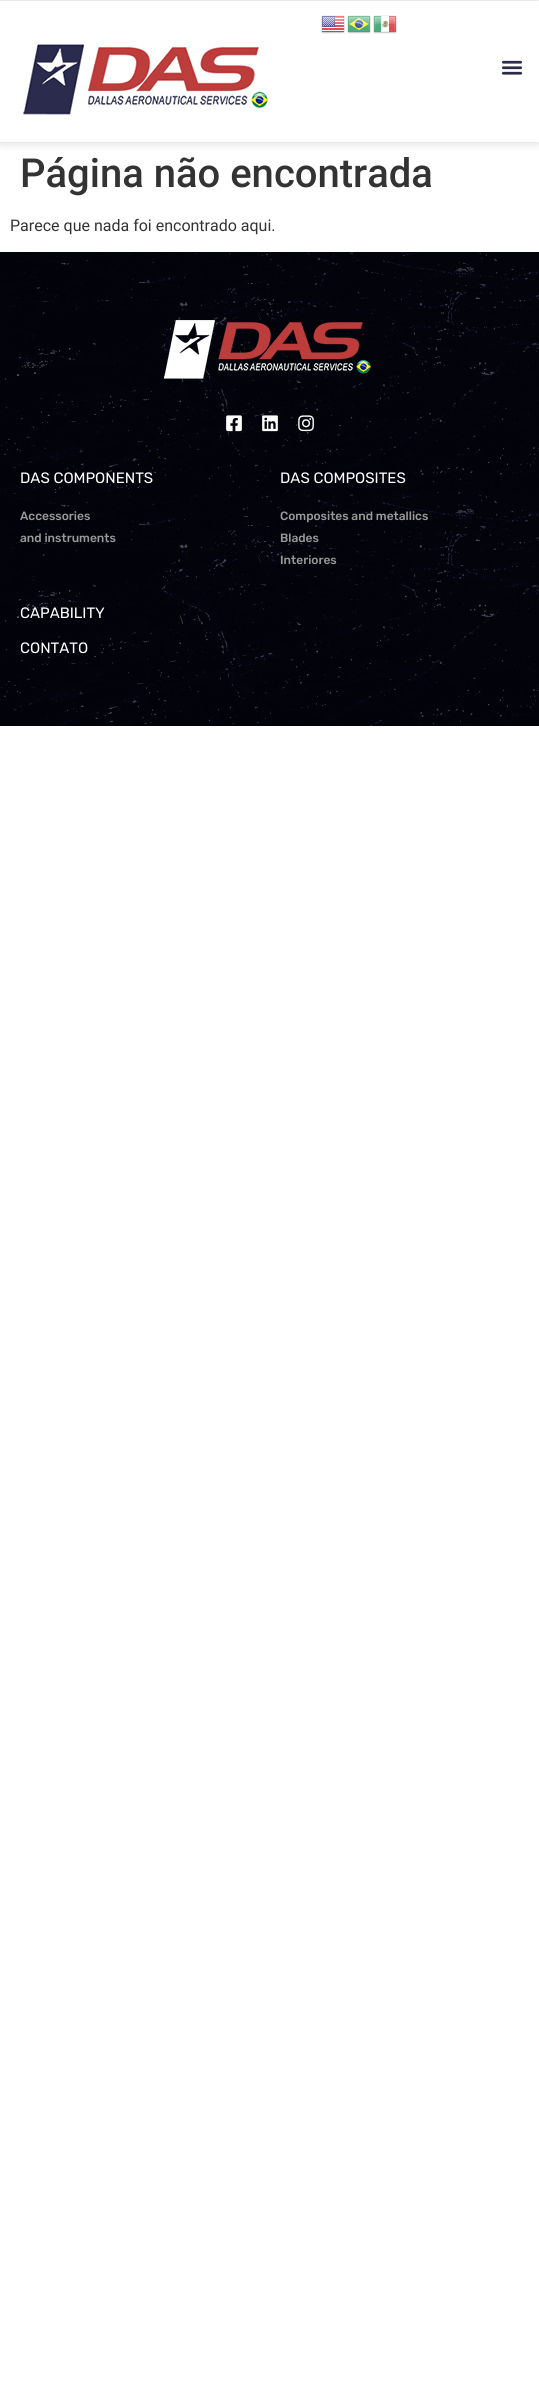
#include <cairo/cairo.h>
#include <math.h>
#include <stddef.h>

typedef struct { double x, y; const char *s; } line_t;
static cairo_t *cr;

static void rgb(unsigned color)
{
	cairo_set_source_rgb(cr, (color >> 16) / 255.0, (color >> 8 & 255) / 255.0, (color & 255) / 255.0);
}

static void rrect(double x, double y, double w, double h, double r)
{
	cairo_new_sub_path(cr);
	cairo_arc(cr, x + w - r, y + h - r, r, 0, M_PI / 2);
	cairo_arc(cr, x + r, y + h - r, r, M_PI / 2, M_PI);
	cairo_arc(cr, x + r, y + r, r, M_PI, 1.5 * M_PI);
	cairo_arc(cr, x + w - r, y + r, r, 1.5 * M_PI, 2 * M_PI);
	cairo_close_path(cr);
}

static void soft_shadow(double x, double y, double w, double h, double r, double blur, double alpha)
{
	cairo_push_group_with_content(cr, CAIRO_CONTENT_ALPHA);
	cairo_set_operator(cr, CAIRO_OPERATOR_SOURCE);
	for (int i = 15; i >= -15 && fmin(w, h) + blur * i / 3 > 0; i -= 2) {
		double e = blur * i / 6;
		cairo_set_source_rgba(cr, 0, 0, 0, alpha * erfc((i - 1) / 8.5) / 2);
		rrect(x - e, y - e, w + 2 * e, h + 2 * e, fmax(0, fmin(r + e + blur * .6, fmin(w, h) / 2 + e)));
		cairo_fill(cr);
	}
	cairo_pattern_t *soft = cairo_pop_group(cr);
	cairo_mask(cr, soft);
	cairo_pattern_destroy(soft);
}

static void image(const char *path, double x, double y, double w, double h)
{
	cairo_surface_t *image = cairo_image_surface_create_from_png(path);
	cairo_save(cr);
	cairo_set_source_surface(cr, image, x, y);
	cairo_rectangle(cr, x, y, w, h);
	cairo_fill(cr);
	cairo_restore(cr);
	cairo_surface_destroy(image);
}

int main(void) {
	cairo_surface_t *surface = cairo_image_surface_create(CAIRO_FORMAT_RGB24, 539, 2388);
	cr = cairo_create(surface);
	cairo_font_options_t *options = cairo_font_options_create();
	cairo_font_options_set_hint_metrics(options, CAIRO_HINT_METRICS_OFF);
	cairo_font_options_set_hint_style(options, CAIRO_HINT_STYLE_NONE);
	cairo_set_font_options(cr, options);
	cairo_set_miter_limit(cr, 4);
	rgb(0xffffff);
	cairo_paint(cr);
	cairo_save(cr);
	cairo_set_fill_rule(cr, CAIRO_FILL_RULE_EVEN_ODD);
	cairo_new_path(cr);
	cairo_move_to(cr, 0, 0);
	cairo_line_to(cr, 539, 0);
	cairo_line_to(cr, 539, 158);
	cairo_line_to(cr, 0, 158);
	cairo_close_path(cr);
	cairo_move_to(cr, 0, 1);
	cairo_line_to(cr, 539, 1);
	cairo_line_to(cr, 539, 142);
	cairo_line_to(cr, 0, 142);
	cairo_close_path(cr);
	cairo_clip(cr);
	rgb(0x000000);
	soft_shadow(0, 1, 539, 141, 0, 5, 0.19);
	cairo_restore(cr);
	image("img/1.png", 23, 44, 246, 71);
	image("img/2.png", 321, 15, 24, 19);
	image("img/3.png", 347, 15, 24, 19);
	image("img/4.png", 373, 15, 24, 19);
	image("img/5.png", 501, 60, 22, 15);
	image("img/6.png", 0, 252, 539, 474);
	image("img/7.png", 164, 320, 207, 59);
	image("img/8.png", 226, 415, 16, 17);
	image("img/9.png", 262, 415, 16, 17);
	image("img/10.png", 298, 415, 16, 17);
	cairo_select_font_face(cr, "Roboto Medium", CAIRO_FONT_SLANT_NORMAL, CAIRO_FONT_WEIGHT_NORMAL);
	cairo_set_font_size(cr, 40);
	rgb(0x333333);
	cairo_move_to(cr, 20, 187);
	cairo_show_text(cr, "Página não encontrada");
	cairo_select_font_face(cr, "Roboto", CAIRO_FONT_SLANT_NORMAL, CAIRO_FONT_WEIGHT_NORMAL);
	cairo_set_font_size(cr, 16);
	cairo_move_to(cr, 10, 231);
	cairo_show_text(cr, "Parece que nada foi encontrado aqui.");
	cairo_select_font_face(cr, "Rubik", CAIRO_FONT_SLANT_NORMAL, CAIRO_FONT_WEIGHT_NORMAL);
	cairo_set_font_size(cr, 15);
	rgb(0xffffff);
	cairo_move_to(cr, 20, 483);
	cairo_show_text(cr, "DAS COMPONENTS");
	cairo_select_font_face(cr, "Rubik Medium", CAIRO_FONT_SLANT_NORMAL, CAIRO_FONT_WEIGHT_NORMAL);
	cairo_set_font_size(cr, 12);
	rgb(0x999999);
	cairo_move_to(cr, 20, 520);
	cairo_show_text(cr, "Accessories");
	cairo_move_to(cr, 20, 542);
	cairo_show_text(cr, "and instruments");
	cairo_select_font_face(cr, "Rubik", CAIRO_FONT_SLANT_NORMAL, CAIRO_FONT_WEIGHT_NORMAL);
	cairo_set_font_size(cr, 15);
	rgb(0xffffff);
	cairo_move_to(cr, 280, 483);
	cairo_show_text(cr, "DAS COMPOSITES");
	cairo_select_font_face(cr, "Rubik Medium", CAIRO_FONT_SLANT_NORMAL, CAIRO_FONT_WEIGHT_NORMAL);
	cairo_set_font_size(cr, 12);
	rgb(0x999999);
	{
		static const line_t items[] = {
			{280, 520, "Composites and metallics"},
			{280, 542, "Blades"},
			{280, 564, "Interiores"},
		};
		for (size_t i = 0; i < sizeof items / sizeof *items; i++) {
			cairo_move_to(cr, items[i].x, items[i].y);
			cairo_show_text(cr, items[i].s);
		}
	}
	cairo_select_font_face(cr, "Rubik", CAIRO_FONT_SLANT_NORMAL, CAIRO_FONT_WEIGHT_NORMAL);
	cairo_set_font_size(cr, 15);
	rgb(0xffffff);
	cairo_move_to(cr, 20, 618);
	cairo_show_text(cr, "CAPABILITY");
	cairo_move_to(cr, 20, 653);
	cairo_show_text(cr, "CONTATO");
	cairo_surface_write_to_png(surface, "page.png");
	cairo_font_options_destroy(options);
	cairo_destroy(cr);
	cairo_surface_destroy(surface);
	return 0;
}
